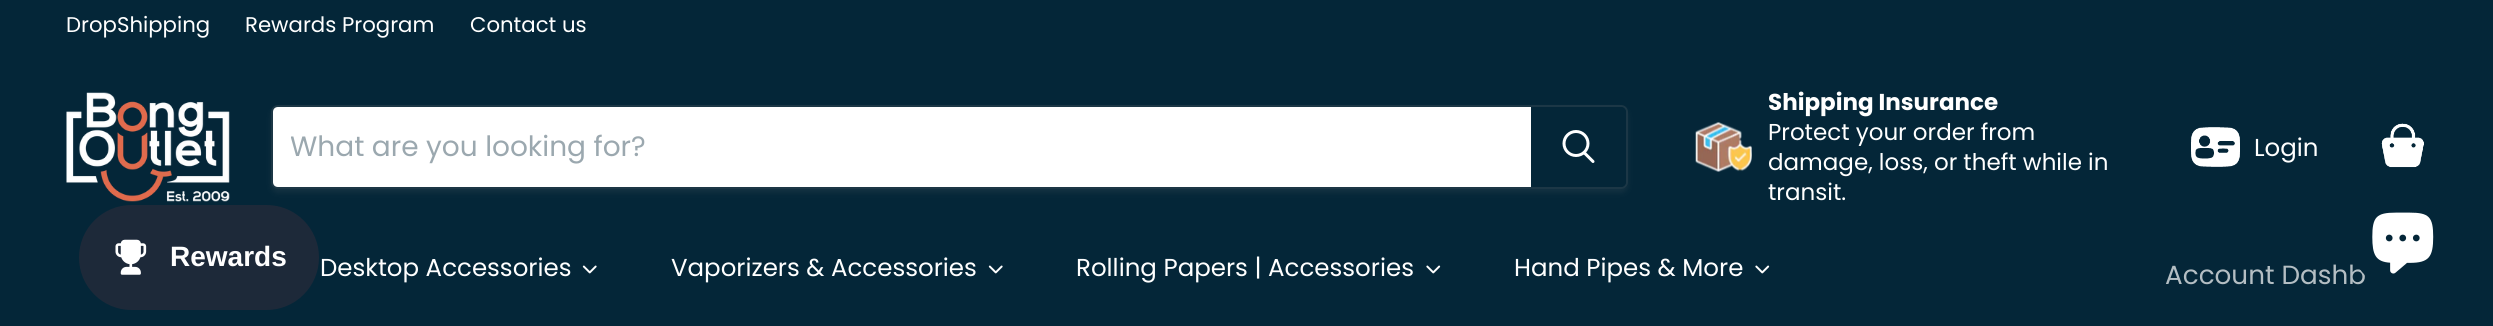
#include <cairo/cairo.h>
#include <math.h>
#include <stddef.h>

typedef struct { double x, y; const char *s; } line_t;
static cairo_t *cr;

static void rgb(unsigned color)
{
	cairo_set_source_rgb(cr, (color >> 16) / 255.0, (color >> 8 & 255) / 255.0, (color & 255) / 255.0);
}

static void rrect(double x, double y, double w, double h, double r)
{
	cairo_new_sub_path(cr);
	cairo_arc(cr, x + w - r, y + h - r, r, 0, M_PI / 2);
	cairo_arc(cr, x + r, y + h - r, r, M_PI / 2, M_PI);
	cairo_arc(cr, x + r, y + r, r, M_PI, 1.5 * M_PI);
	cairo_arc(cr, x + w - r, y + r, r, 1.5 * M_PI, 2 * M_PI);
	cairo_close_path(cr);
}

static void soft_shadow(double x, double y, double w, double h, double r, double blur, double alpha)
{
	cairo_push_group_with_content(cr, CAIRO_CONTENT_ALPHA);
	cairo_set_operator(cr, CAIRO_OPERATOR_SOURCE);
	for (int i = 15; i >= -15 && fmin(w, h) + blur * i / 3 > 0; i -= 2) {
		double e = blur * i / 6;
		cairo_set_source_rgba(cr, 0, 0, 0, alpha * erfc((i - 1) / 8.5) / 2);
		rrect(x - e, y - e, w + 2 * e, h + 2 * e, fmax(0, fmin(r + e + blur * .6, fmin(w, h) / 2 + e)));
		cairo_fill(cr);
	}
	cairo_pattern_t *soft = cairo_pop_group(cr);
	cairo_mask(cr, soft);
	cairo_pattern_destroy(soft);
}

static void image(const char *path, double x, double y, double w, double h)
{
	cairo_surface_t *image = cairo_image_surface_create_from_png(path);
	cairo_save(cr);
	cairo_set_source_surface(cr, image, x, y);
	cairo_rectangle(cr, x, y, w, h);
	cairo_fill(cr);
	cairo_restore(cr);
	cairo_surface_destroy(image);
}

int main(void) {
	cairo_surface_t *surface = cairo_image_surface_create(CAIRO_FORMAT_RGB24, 2493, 326);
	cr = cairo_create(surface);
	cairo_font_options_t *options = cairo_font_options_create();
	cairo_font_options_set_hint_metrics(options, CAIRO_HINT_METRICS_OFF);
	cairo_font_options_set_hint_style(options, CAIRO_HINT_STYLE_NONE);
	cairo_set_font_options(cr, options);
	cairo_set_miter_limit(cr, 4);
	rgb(0x042638);
	cairo_paint(cr);
	rgb(0x1d2939);
	rrect(79, 205, 240, 105, 52.5);
	cairo_fill(cr);
	image("img/1.png", 115, 239, 32, 36);
	image("img/2.png", 66, 92, 164, 110);
	cairo_save(cr);
	cairo_set_fill_rule(cr, CAIRO_FILL_RULE_EVEN_ODD);
	cairo_new_path(cr);
	cairo_move_to(cr, 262, 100);
	cairo_line_to(cr, 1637, 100);
	cairo_line_to(cr, 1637, 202);
	cairo_line_to(cr, 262, 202);
	cairo_close_path(cr);
	cairo_move_to(cr, 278, 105);
	cairo_line_to(cr, 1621, 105);
	cairo_curve_to(cr, 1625, 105, 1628, 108, 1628, 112);
	cairo_line_to(cr, 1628, 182);
	cairo_curve_to(cr, 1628, 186, 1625, 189, 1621, 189);
	cairo_line_to(cr, 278, 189);
	cairo_curve_to(cr, 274, 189, 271, 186, 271, 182);
	cairo_line_to(cr, 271, 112);
	cairo_curve_to(cr, 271, 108, 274, 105, 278, 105);
	cairo_close_path(cr);
	cairo_clip(cr);
	rgb(0x808080);
	soft_shadow(271, 109, 1357, 84, 7, 2.5, 0.11);
	cairo_restore(cr);
	rrect(272, 106, 1355, 82, 6);
	cairo_set_source_rgba(cr, 0.502, 0.502, 0.502, 0.2);
	cairo_stroke(cr);
	rgb(0xffffff);
	cairo_new_path(cr);
	cairo_move_to(cr, 278, 107);
	cairo_line_to(cr, 1531, 107);
	cairo_line_to(cr, 1531, 187);
	cairo_line_to(cr, 278, 187);
	cairo_curve_to(cr, 275, 187, 273, 185, 273, 182);
	cairo_line_to(cr, 273, 112);
	cairo_curve_to(cr, 273, 109, 275, 107, 278, 107);
	cairo_close_path(cr);
	cairo_fill(cr);
	rgb(0x042638);
	cairo_new_path(cr);
	cairo_move_to(cr, 1532, 108);
	cairo_line_to(cr, 1621, 108);
	cairo_curve_to(cr, 1623, 108, 1625, 110, 1625, 112);
	cairo_line_to(cr, 1625, 182);
	cairo_curve_to(cr, 1625, 184, 1623, 186, 1621, 186);
	cairo_line_to(cr, 1532, 186);
	cairo_close_path(cr);
	cairo_fill_preserve(cr);
	cairo_stroke(cr);
	cairo_new_path(cr);
	cairo_move_to(cr, 1593, 161.5);
	cairo_line_to(cr, 1584.5, 153);
	rgb(0xffffff);
	cairo_set_line_width(cr, 3);
	cairo_set_line_cap(cr, CAIRO_LINE_CAP_ROUND);
	cairo_stroke(cr);
	cairo_arc(cr, 1576, 143.5, 12, 0, 2 * M_PI);
	cairo_set_line_cap(cr, CAIRO_LINE_CAP_BUTT);
	cairo_stroke(cr);
	image("img/3.png", 1695, 122, 57, 50);
	image("img/4.png", 2191, 127, 49, 40);
	image("img/5.png", 2381, 123, 43, 45);
	image("img/6.png", 582, 265, 15, 9);
	image("img/6.png", 988, 265, 15, 9);
	image("img/7.png", 1426, 265, 15, 9);
	image("img/7.png", 1755, 265, 15, 9);
	cairo_select_font_face(cr, "Poppins", CAIRO_FONT_SLANT_NORMAL, CAIRO_FONT_WEIGHT_NORMAL);
	cairo_set_font_size(cr, 21.25);
	{
		static const line_t items[] = {
			{66, 32, "DropShipping"},
			{245, 32, "Rewards Program"},
			{470, 32, "Contact us"},
		};
		for (size_t i = 0; i < sizeof items / sizeof *items; i++) {
			cairo_move_to(cr, items[i].x, items[i].y);
			cairo_show_text(cr, items[i].s);
		}
	}
	cairo_select_font_face(cr, "Liberation Sans", CAIRO_FONT_SLANT_NORMAL, CAIRO_FONT_WEIGHT_BOLD);
	cairo_set_font_size(cr, 28);
	cairo_move_to(cr, 170, 266);
	cairo_show_text(cr, "Rewards");
	cairo_save(cr);
	cairo_rectangle(cr, 291, 124, 1223, 44);
	cairo_clip(cr);
	cairo_select_font_face(cr, "Poppins", CAIRO_FONT_SLANT_NORMAL, CAIRO_FONT_WEIGHT_NORMAL);
	rgb(0x9ba8af);
	cairo_move_to(cr, 290, 156);
	cairo_show_text(cr, "What are you looking for?");
	cairo_restore(cr);
	cairo_select_font_face(cr, "Poppins", CAIRO_FONT_SLANT_NORMAL, CAIRO_FONT_WEIGHT_BOLD);
	cairo_set_font_size(cr, 23);
	cairo_move_to(cr, 1768, 110);
	cairo_show_text(cr, "Shipping Insurance");
	cairo_select_font_face(cr, "Poppins", CAIRO_FONT_SLANT_NORMAL, CAIRO_FONT_WEIGHT_NORMAL);
	{
		static const line_t items[] = {
			{1768, 140, "Protect your order from"},
			{1768, 170, "damage, loss, or theft while in"},
			{1768, 200, "transit."},
		};
		for (size_t i = 0; i < sizeof items / sizeof *items; i++) {
			cairo_move_to(cr, items[i].x, items[i].y);
			cairo_show_text(cr, items[i].s);
		}
	}
	cairo_set_font_size(cr, 24.5);
	{
		static const line_t items[] = {
			{2254, 156, "Login"},
			{320, 276, "Desktop Accessories"},
			{671, 276, "Vaporizers & Accessories"},
			{1076, 276, "Rolling Papers | Accessories"},
			{1514, 276, "Hand Pipes & More"},
		};
		for (size_t i = 0; i < sizeof items / sizeof *items; i++) {
			cairo_move_to(cr, items[i].x, items[i].y);
			cairo_show_text(cr, items[i].s);
		}
	}
	cairo_set_font_size(cr, 26.25);
	rgb(0xb4bec3);
	cairo_move_to(cr, 2165, 284);
	cairo_show_text(cr, "Account Dashb");
	rgb(0x042638);
	cairo_new_path(cr);
	cairo_arc(cr, 2402.5, 238.5, 52.5, 0, 2 * M_PI);
	cairo_fill(cr);
	image("img/8.png", 2372, 212, 62, 62);
	cairo_surface_write_to_png(surface, "page.png");
	cairo_font_options_destroy(options);
	cairo_destroy(cr);
	cairo_surface_destroy(surface);
	return 0;
}
